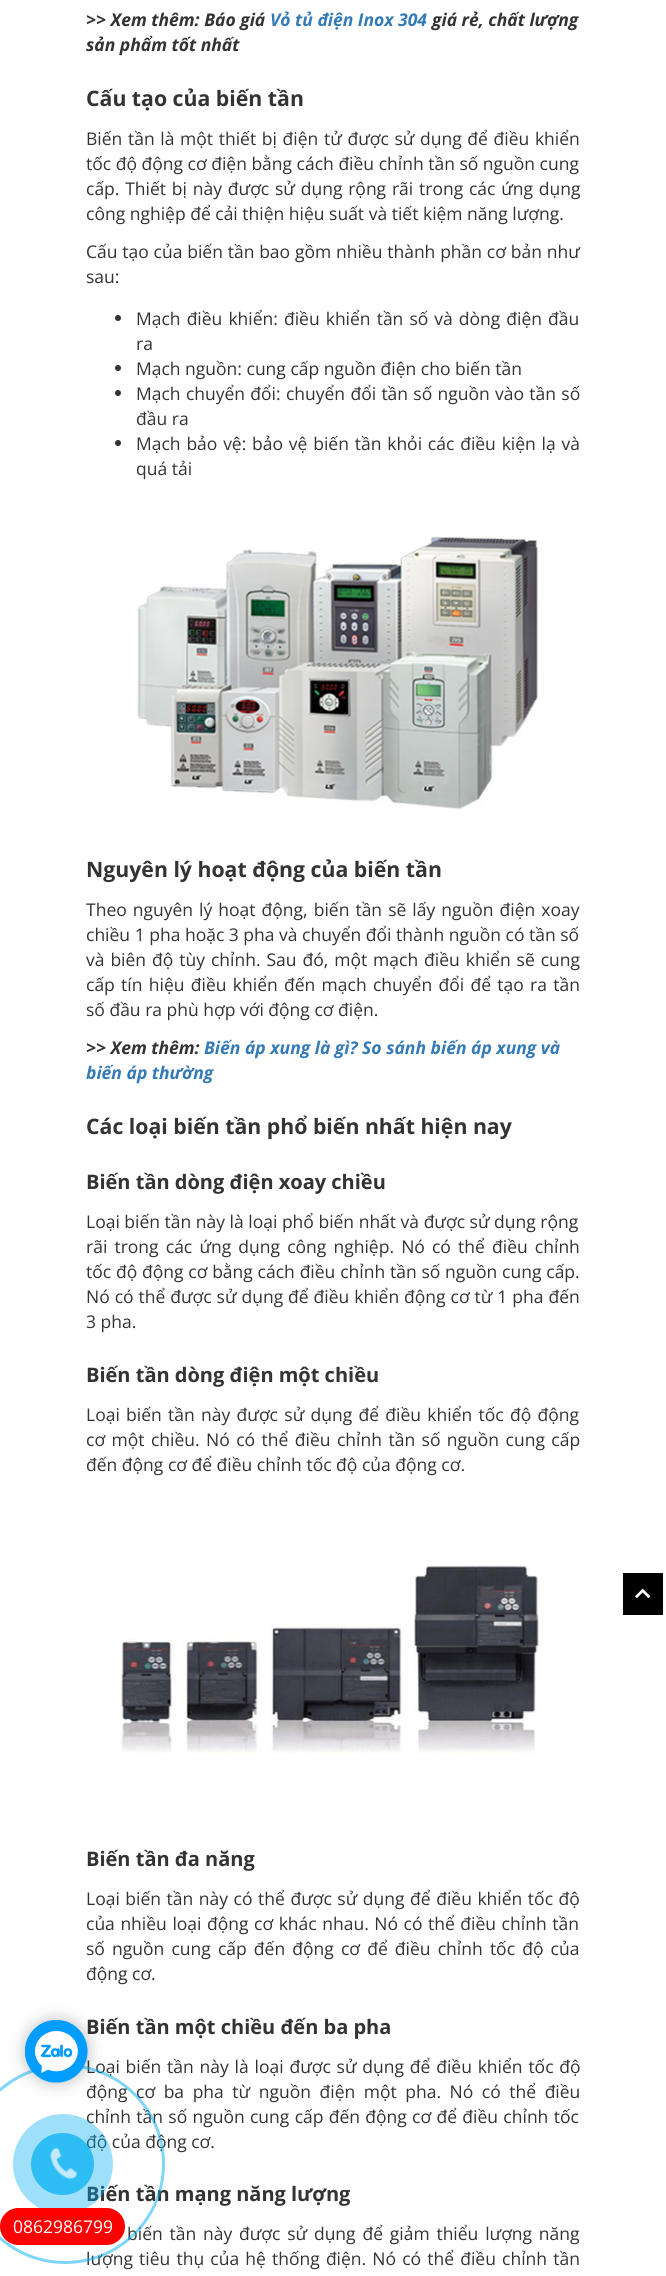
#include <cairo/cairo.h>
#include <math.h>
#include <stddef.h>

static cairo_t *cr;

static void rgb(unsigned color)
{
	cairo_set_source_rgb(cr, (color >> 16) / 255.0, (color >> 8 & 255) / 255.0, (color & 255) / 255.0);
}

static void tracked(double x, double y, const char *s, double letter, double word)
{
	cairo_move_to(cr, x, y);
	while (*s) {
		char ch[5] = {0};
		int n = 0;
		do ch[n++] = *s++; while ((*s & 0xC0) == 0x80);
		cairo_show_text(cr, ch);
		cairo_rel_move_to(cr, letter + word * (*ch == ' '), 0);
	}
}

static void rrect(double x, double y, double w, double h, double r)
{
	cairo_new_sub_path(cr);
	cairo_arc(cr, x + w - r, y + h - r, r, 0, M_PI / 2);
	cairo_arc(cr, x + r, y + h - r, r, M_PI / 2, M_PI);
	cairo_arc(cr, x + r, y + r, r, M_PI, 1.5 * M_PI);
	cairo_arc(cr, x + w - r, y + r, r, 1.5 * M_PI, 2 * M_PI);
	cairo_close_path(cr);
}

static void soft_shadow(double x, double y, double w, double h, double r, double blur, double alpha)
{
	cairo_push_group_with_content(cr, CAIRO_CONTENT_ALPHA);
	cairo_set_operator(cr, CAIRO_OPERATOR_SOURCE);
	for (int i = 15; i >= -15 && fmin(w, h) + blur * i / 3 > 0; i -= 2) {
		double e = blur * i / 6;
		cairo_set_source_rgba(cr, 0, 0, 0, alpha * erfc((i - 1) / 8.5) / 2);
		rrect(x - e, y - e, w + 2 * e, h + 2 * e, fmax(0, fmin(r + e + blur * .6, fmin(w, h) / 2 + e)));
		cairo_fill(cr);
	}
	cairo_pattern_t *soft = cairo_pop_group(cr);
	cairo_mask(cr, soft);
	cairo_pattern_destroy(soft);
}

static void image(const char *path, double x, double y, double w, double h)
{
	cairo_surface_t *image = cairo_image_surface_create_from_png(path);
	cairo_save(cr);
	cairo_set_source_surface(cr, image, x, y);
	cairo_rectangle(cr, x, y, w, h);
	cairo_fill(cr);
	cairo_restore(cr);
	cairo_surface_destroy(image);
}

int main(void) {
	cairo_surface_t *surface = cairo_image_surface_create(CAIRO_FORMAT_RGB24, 666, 2276);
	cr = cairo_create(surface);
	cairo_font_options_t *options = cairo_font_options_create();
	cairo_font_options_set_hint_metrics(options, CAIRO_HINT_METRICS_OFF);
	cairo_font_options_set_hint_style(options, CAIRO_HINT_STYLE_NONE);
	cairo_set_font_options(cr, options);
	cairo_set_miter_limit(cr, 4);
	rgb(0xffffff);
	cairo_paint(cr);
	rgb(0x333333);
	cairo_arc(cr, 118, 318, 3, 0, 2 * M_PI);
	cairo_fill(cr);
	cairo_arc(cr, 118, 368, 3, 0, 2 * M_PI);
	cairo_fill(cr);
	cairo_arc(cr, 118, 393, 3, 0, 2 * M_PI);
	cairo_fill(cr);
	cairo_arc(cr, 118, 443, 3, 0, 2 * M_PI);
	cairo_fill(cr);
	image("img/1.png", 137, 536, 401, 274);
	image("img/2.png", 120, 1565, 421, 190);
	rgb(0x000000);
	cairo_rectangle(cr, 623, 1573, 40, 42);
	cairo_fill(cr);
	image("img/3.png", 635, 1588, 16, 10);
	cairo_select_font_face(cr, "Open Sans", CAIRO_FONT_SLANT_ITALIC, CAIRO_FONT_WEIGHT_BOLD);
	cairo_set_font_size(cr, 17.5);
	rgb(0x333333);
	cairo_move_to(cr, 86, 26);
	cairo_show_text(cr, ">> Xem thêm: Báo giá");
	rgb(0x337ab7);
	cairo_move_to(cr, 270, 26);
	cairo_show_text(cr, "Vỏ tủ điện Inox 304");
	rgb(0x333333);
	cairo_move_to(cr, 432, 26);
	cairo_show_text(cr, "giá rẻ, chất lượng");
	cairo_move_to(cr, 86, 51);
	cairo_show_text(cr, "sản phẩm tốt nhất");
	cairo_select_font_face(cr, "Open Sans", CAIRO_FONT_SLANT_NORMAL, CAIRO_FONT_WEIGHT_BOLD);
	cairo_set_font_size(cr, 21.25);
	cairo_move_to(cr, 86, 106);
	cairo_show_text(cr, "Cấu tạo của biến tần");
	cairo_select_font_face(cr, "Open Sans", CAIRO_FONT_SLANT_NORMAL, CAIRO_FONT_WEIGHT_NORMAL);
	cairo_set_font_size(cr, 17.5);
	tracked(86, 145, "Biến tần là một thiết bị điện tử được sử dụng để điều khiển", 0, 1.1);
	cairo_move_to(cr, 86, 170);
	cairo_show_text(cr, "tốc độ động cơ điện bằng cách điều chỉnh tần số nguồn cung");
	tracked(86, 195, "cấp. Thiết bị này được sử dụng rộng rãi trong các ứng dụng", 0, 1.25);
	cairo_move_to(cr, 86, 220);
	cairo_show_text(cr, "công nghiệp để cải thiện hiệu suất và tiết kiệm năng lượng.");
	tracked(86, 258, "Cấu tạo của biến tần bao gồm nhiều thành phần cơ bản như", 0, 0.25);
	cairo_move_to(cr, 86, 283);
	cairo_show_text(cr, "sau:");
	tracked(136, 325, "Mạch điều khiển: điều khiển tần số và dòng điện đầu", 0, 1.5);
	cairo_move_to(cr, 136, 350);
	cairo_show_text(cr, "ra");
	cairo_move_to(cr, 136, 375);
	cairo_show_text(cr, "Mạch nguồn: cung cấp nguồn điện cho biến tần");
	tracked(136, 400, "Mạch chuyển đổi: chuyển đổi tần số nguồn vào tần số", 0, 0.75);
	cairo_move_to(cr, 136, 425);
	cairo_show_text(cr, "đầu ra");
	tracked(136, 450, "Mạch bảo vệ: bảo vệ biến tần khỏi các điều kiện lạ và", 0, 1.25);
	cairo_move_to(cr, 136, 475);
	cairo_show_text(cr, "quá tải");
	cairo_select_font_face(cr, "Open Sans", CAIRO_FONT_SLANT_NORMAL, CAIRO_FONT_WEIGHT_BOLD);
	cairo_set_font_size(cr, 21.25);
	cairo_move_to(cr, 86, 877);
	cairo_show_text(cr, "Nguyên lý hoạt động của biến tần");
	cairo_select_font_face(cr, "Open Sans", CAIRO_FONT_SLANT_NORMAL, CAIRO_FONT_WEIGHT_NORMAL);
	cairo_set_font_size(cr, 17.5);
	tracked(86, 916, "Theo nguyên lý hoạt động, biến tần sẽ lấy nguồn điện xoay", 0, 1.5);
	cairo_move_to(cr, 86, 941);
	cairo_show_text(cr, "chiều 1 pha hoặc 3 pha và chuyển đổi thành nguồn có tần số");
	tracked(86, 966, "và biên độ tùy chỉnh. Sau đó, một mạch điều khiển sẽ cung", 0, 1.4);
	tracked(86, 991, "cấp tín hiệu điều khiển đến mạch chuyển đổi để tạo ra tần", 0, 1.75);
	cairo_move_to(cr, 86, 1016);
	cairo_show_text(cr, "số đầu ra phù hợp với động cơ điện.");
	cairo_select_font_face(cr, "Open Sans", CAIRO_FONT_SLANT_ITALIC, CAIRO_FONT_WEIGHT_BOLD);
	cairo_move_to(cr, 86, 1054);
	cairo_show_text(cr, ">> Xem thêm:");
	rgb(0x337ab7);
	cairo_move_to(cr, 204, 1054);
	cairo_show_text(cr, "Biến áp xung là gì? So sánh biến áp xung và");
	cairo_move_to(cr, 86, 1079);
	cairo_show_text(cr, "biến áp thường");
	cairo_select_font_face(cr, "Open Sans", CAIRO_FONT_SLANT_NORMAL, CAIRO_FONT_WEIGHT_BOLD);
	cairo_set_font_size(cr, 21.25);
	rgb(0x333333);
	cairo_move_to(cr, 86, 1134);
	cairo_show_text(cr, "Các loại biến tần phổ biến nhất hiện nay");
	cairo_set_font_size(cr, 20);
	cairo_move_to(cr, 86, 1189);
	cairo_show_text(cr, "Biến tần dòng điện xoay chiều");
	cairo_select_font_face(cr, "Open Sans", CAIRO_FONT_SLANT_NORMAL, CAIRO_FONT_WEIGHT_NORMAL);
	cairo_set_font_size(cr, 17.5);
	cairo_move_to(cr, 86, 1228);
	cairo_show_text(cr, "Loại biến tần này là loại phổ biến nhất và được sử dụng rộng");
	tracked(86, 1253, "rãi trong các ứng dụng công nghiệp. Nó có thể điều chỉnh", 0, 2.6);
	tracked(86, 1278, "tốc độ động cơ bằng cách điều chỉnh tần số nguồn cung cấp.", 0, 0.25);
	tracked(86, 1303, "Nó có thể được sử dụng để điều khiển động cơ từ 1 pha đến", 0, 0.4);
	cairo_move_to(cr, 86, 1328);
	cairo_show_text(cr, "3 pha.");
	cairo_select_font_face(cr, "Open Sans", CAIRO_FONT_SLANT_NORMAL, CAIRO_FONT_WEIGHT_BOLD);
	cairo_set_font_size(cr, 20);
	cairo_move_to(cr, 86, 1382);
	cairo_show_text(cr, "Biến tần dòng điện một chiều");
	cairo_select_font_face(cr, "Open Sans", CAIRO_FONT_SLANT_NORMAL, CAIRO_FONT_WEIGHT_NORMAL);
	cairo_set_font_size(cr, 17.5);
	tracked(86, 1421, "Loại biến tần này được sử dụng để điều khiển tốc độ động", 0, 1.75);
	tracked(86, 1446, "cơ một chiều. Nó có thể điều chỉnh tần số nguồn cung cấp", 0, 1.9);
	cairo_move_to(cr, 86, 1471);
	cairo_show_text(cr, "đến động cơ để điều chỉnh tốc độ của động cơ.");
	cairo_select_font_face(cr, "Open Sans", CAIRO_FONT_SLANT_NORMAL, CAIRO_FONT_WEIGHT_BOLD);
	cairo_set_font_size(cr, 20);
	cairo_move_to(cr, 86, 1866);
	cairo_show_text(cr, "Biến tần đa năng");
	cairo_select_font_face(cr, "Open Sans", CAIRO_FONT_SLANT_NORMAL, CAIRO_FONT_WEIGHT_NORMAL);
	cairo_set_font_size(cr, 17.5);
	tracked(86, 1905, "Loại biến tần này có thể được sử dụng để điều khiển tốc độ", 0, 1);
	tracked(86, 1930, "của nhiều loại động cơ khác nhau. Nó có thể điều chỉnh tần", 0, 1);
	tracked(86, 1955, "số nguồn cung cấp đến động cơ để điều chỉnh tốc độ của", 0, 2.6);
	cairo_move_to(cr, 86, 1980);
	cairo_show_text(cr, "động cơ.");
	cairo_select_font_face(cr, "Open Sans", CAIRO_FONT_SLANT_NORMAL, CAIRO_FONT_WEIGHT_BOLD);
	cairo_set_font_size(cr, 20);
	cairo_move_to(cr, 86, 2034);
	cairo_show_text(cr, "Biến tần một chiều đến ba pha");
	cairo_select_font_face(cr, "Open Sans", CAIRO_FONT_SLANT_NORMAL, CAIRO_FONT_WEIGHT_NORMAL);
	cairo_set_font_size(cr, 17.5);
	tracked(86, 2073, "Loại biến tần này là loại được sử dụng để điều khiển tốc độ", 0, 1.25);
	tracked(86, 2098, "động cơ ba pha từ nguồn điện một pha. Nó có thể điều", 0, 4);
	tracked(86, 2123, "chỉnh tần số nguồn cung cấp đến động cơ để điều chỉnh tốc", 0, 0.75);
	cairo_move_to(cr, 86, 2148);
	cairo_show_text(cr, "độ của động cơ.");
	cairo_select_font_face(cr, "Open Sans", CAIRO_FONT_SLANT_NORMAL, CAIRO_FONT_WEIGHT_BOLD);
	cairo_set_font_size(cr, 20);
	cairo_move_to(cr, 86, 2201);
	cairo_show_text(cr, "Biến tần mạng năng lượng");
	cairo_select_font_face(cr, "Open Sans", CAIRO_FONT_SLANT_NORMAL, CAIRO_FONT_WEIGHT_NORMAL);
	cairo_set_font_size(cr, 17.5);
	tracked(127, 2240, "biến tần này được sử dụng để giảm thiểu lượng năng", 0, 2.25);
	tracked(86, 2265, "lượng tiêu thụ của hệ thống điện. Nó có thể điều chỉnh tần", 0, 1.6);
	cairo_new_path(cr);
	cairo_arc(cr, 65, 2164, 98.5, 0, 2 * M_PI);
	cairo_set_source_rgba(cr, 0, 0.686, 0.949, 0.5);
	cairo_set_line_width(cr, 3);
	cairo_stroke(cr);
	rgb(0x000000);
	soft_shadow(25, 2020, 63, 63, 31.5, 8, 0.25);
	image("img/4.png", 25, 2020, 63, 63);
	cairo_set_source_rgba(cr, 0, 0.686, 0.949, 0.38);
	cairo_arc(cr, 63, 2164, 50, 0, 2 * M_PI);
	cairo_fill(cr);
	cairo_set_source_rgba(cr, 0, 0.686, 0.949, 0.7);
	rrect(31, 2133, 63, 62, 31);
	cairo_fill(cr);
	image("img/5.png", 50, 2147, 28, 33);
	rgb(0xff0000);
	rrect(0, 2208, 125, 37, 18.5);
	cairo_fill(cr);
	rgb(0xffffff);
	cairo_move_to(cr, 13, 2233);
	cairo_show_text(cr, "0862986799");
	cairo_surface_write_to_png(surface, "page.png");
	cairo_font_options_destroy(options);
	cairo_destroy(cr);
	cairo_surface_destroy(surface);
	return 0;
}
